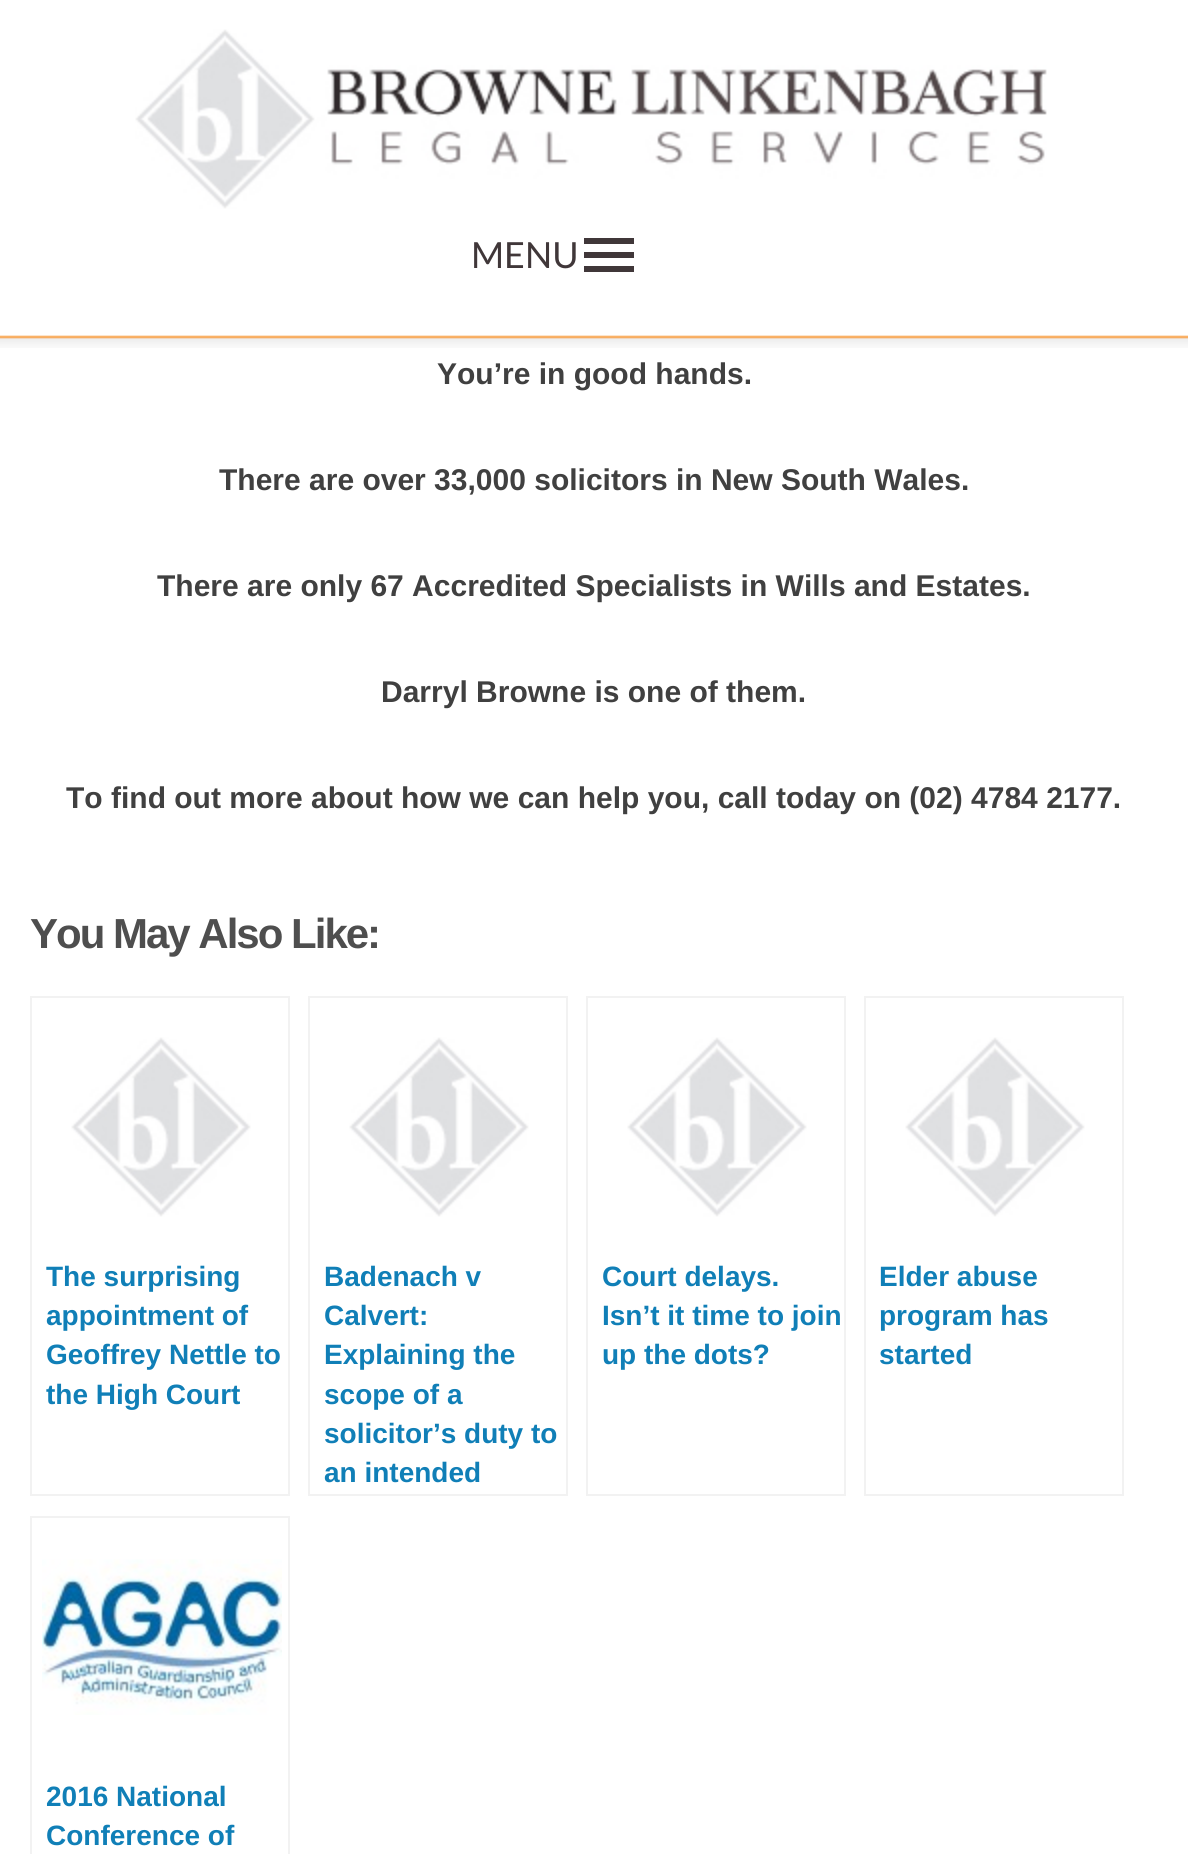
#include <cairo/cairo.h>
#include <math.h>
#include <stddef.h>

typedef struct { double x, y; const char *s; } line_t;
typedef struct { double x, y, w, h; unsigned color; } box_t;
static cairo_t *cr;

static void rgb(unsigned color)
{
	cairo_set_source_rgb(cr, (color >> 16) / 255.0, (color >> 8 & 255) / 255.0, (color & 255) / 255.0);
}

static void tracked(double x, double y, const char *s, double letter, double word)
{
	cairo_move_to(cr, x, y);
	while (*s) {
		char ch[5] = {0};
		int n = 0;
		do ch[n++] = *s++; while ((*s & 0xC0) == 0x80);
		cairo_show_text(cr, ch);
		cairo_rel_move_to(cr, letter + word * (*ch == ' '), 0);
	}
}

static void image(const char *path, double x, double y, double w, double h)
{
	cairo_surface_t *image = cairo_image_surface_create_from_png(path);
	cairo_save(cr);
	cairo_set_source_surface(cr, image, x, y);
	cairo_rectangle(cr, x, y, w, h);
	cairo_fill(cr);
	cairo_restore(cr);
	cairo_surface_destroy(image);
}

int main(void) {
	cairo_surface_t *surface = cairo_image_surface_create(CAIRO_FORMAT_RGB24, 1188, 1854);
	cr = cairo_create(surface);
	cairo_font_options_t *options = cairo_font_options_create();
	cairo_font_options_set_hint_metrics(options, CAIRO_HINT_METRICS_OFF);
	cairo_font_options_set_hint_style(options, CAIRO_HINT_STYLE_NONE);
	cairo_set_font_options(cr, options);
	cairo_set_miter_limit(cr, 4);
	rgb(0xffffff);
	cairo_paint(cr);
	image("img/1.png", 0, 0, 1188, 348);
	image("img/2.png", 135, 29, 912, 180);
	{
		static const box_t items[] = {
			{584, 238, 50, 6, 0x403739},
			{584, 252, 50, 6, 0x403739},
			{584, 266, 50, 6, 0x403739},
		};
		for (size_t i = 0; i < sizeof items / sizeof *items; i++) {
			rgb(items[i].color);
			cairo_rectangle(cr, items[i].x, items[i].y, items[i].w, items[i].h);
			cairo_fill(cr);
		}
	}
	cairo_rectangle(cr, 31, 997, 258, 498);
	rgb(0xf2f2f2);
	cairo_stroke(cr);
	image("img/3.png", 71, 1037, 180, 180);
	cairo_rectangle(cr, 309, 997, 258, 498);
	cairo_stroke(cr);
	image("img/3.png", 349, 1037, 180, 180);
	cairo_rectangle(cr, 587, 997, 258, 498);
	cairo_stroke(cr);
	image("img/3.png", 627, 1037, 180, 180);
	cairo_rectangle(cr, 865, 997, 258, 498);
	cairo_stroke(cr);
	image("img/3.png", 905, 1037, 180, 180);
	cairo_rectangle(cr, 31, 1517, 258, 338);
	cairo_stroke(cr);
	image("img/4.png", 42, 1559, 240, 156);
	cairo_select_font_face(cr, "Lato", CAIRO_FONT_SLANT_NORMAL, CAIRO_FONT_WEIGHT_NORMAL);
	cairo_set_font_size(cr, 36);
	rgb(0x403739);
	cairo_move_to(cr, 471, 268);
	cairo_show_text(cr, "MENU");
	cairo_select_font_face(cr, "Liberation Sans", CAIRO_FONT_SLANT_NORMAL, CAIRO_FONT_WEIGHT_BOLD);
	cairo_set_font_size(cr, 30);
	rgb(0x404040);
	{
		static const line_t items[] = {
			{437, 384, "You’re in good hands."},
			{219, 490, "There are over 33,000 solicitors in New South Wales."},
			{157, 596, "There are only 67 Accredited Specialists in Wills and Estates."},
			{381, 702, "Darryl Browne is one of them."},
			{66, 808, "To find out more about how we can help you, call today on (02) 4784 2177."},
		};
		for (size_t i = 0; i < sizeof items / sizeof *items; i++) {
			cairo_move_to(cr, items[i].x, items[i].y);
			cairo_show_text(cr, items[i].s);
		}
	}
	cairo_set_font_size(cr, 42);
	rgb(0x4e4e4e);
	tracked(30, 948, "You May Also Like:", -2, 0);
	cairo_set_font_size(cr, 28);
	rgb(0x107fb7);
	{
		static const line_t items[] = {
			{46, 1286, "The surprising"},
			{46, 1325, "appointment of"},
			{46, 1364, "Geoffrey Nettle to"},
			{46, 1404, "the High Court"},
			{324, 1286, "Badenach v"},
			{324, 1325, "Calvert:"},
			{324, 1364, "Explaining the"},
			{324, 1404, "scope of a"},
			{324, 1443, "solicitor’s duty to"},
			{324, 1482, "an intended"},
			{602, 1286, "Court delays."},
			{602, 1325, "Isn’t it time to join"},
			{602, 1364, "up the dots?"},
			{879, 1286, "Elder abuse"},
			{879, 1325, "program has"},
			{879, 1364, "started"},
			{46, 1806, "2016 National"},
			{46, 1845, "Conference of"},
		};
		for (size_t i = 0; i < sizeof items / sizeof *items; i++) {
			cairo_move_to(cr, items[i].x, items[i].y);
			cairo_show_text(cr, items[i].s);
		}
	}
	cairo_surface_write_to_png(surface, "page.png");
	cairo_font_options_destroy(options);
	cairo_destroy(cr);
	cairo_surface_destroy(surface);
	return 0;
}
